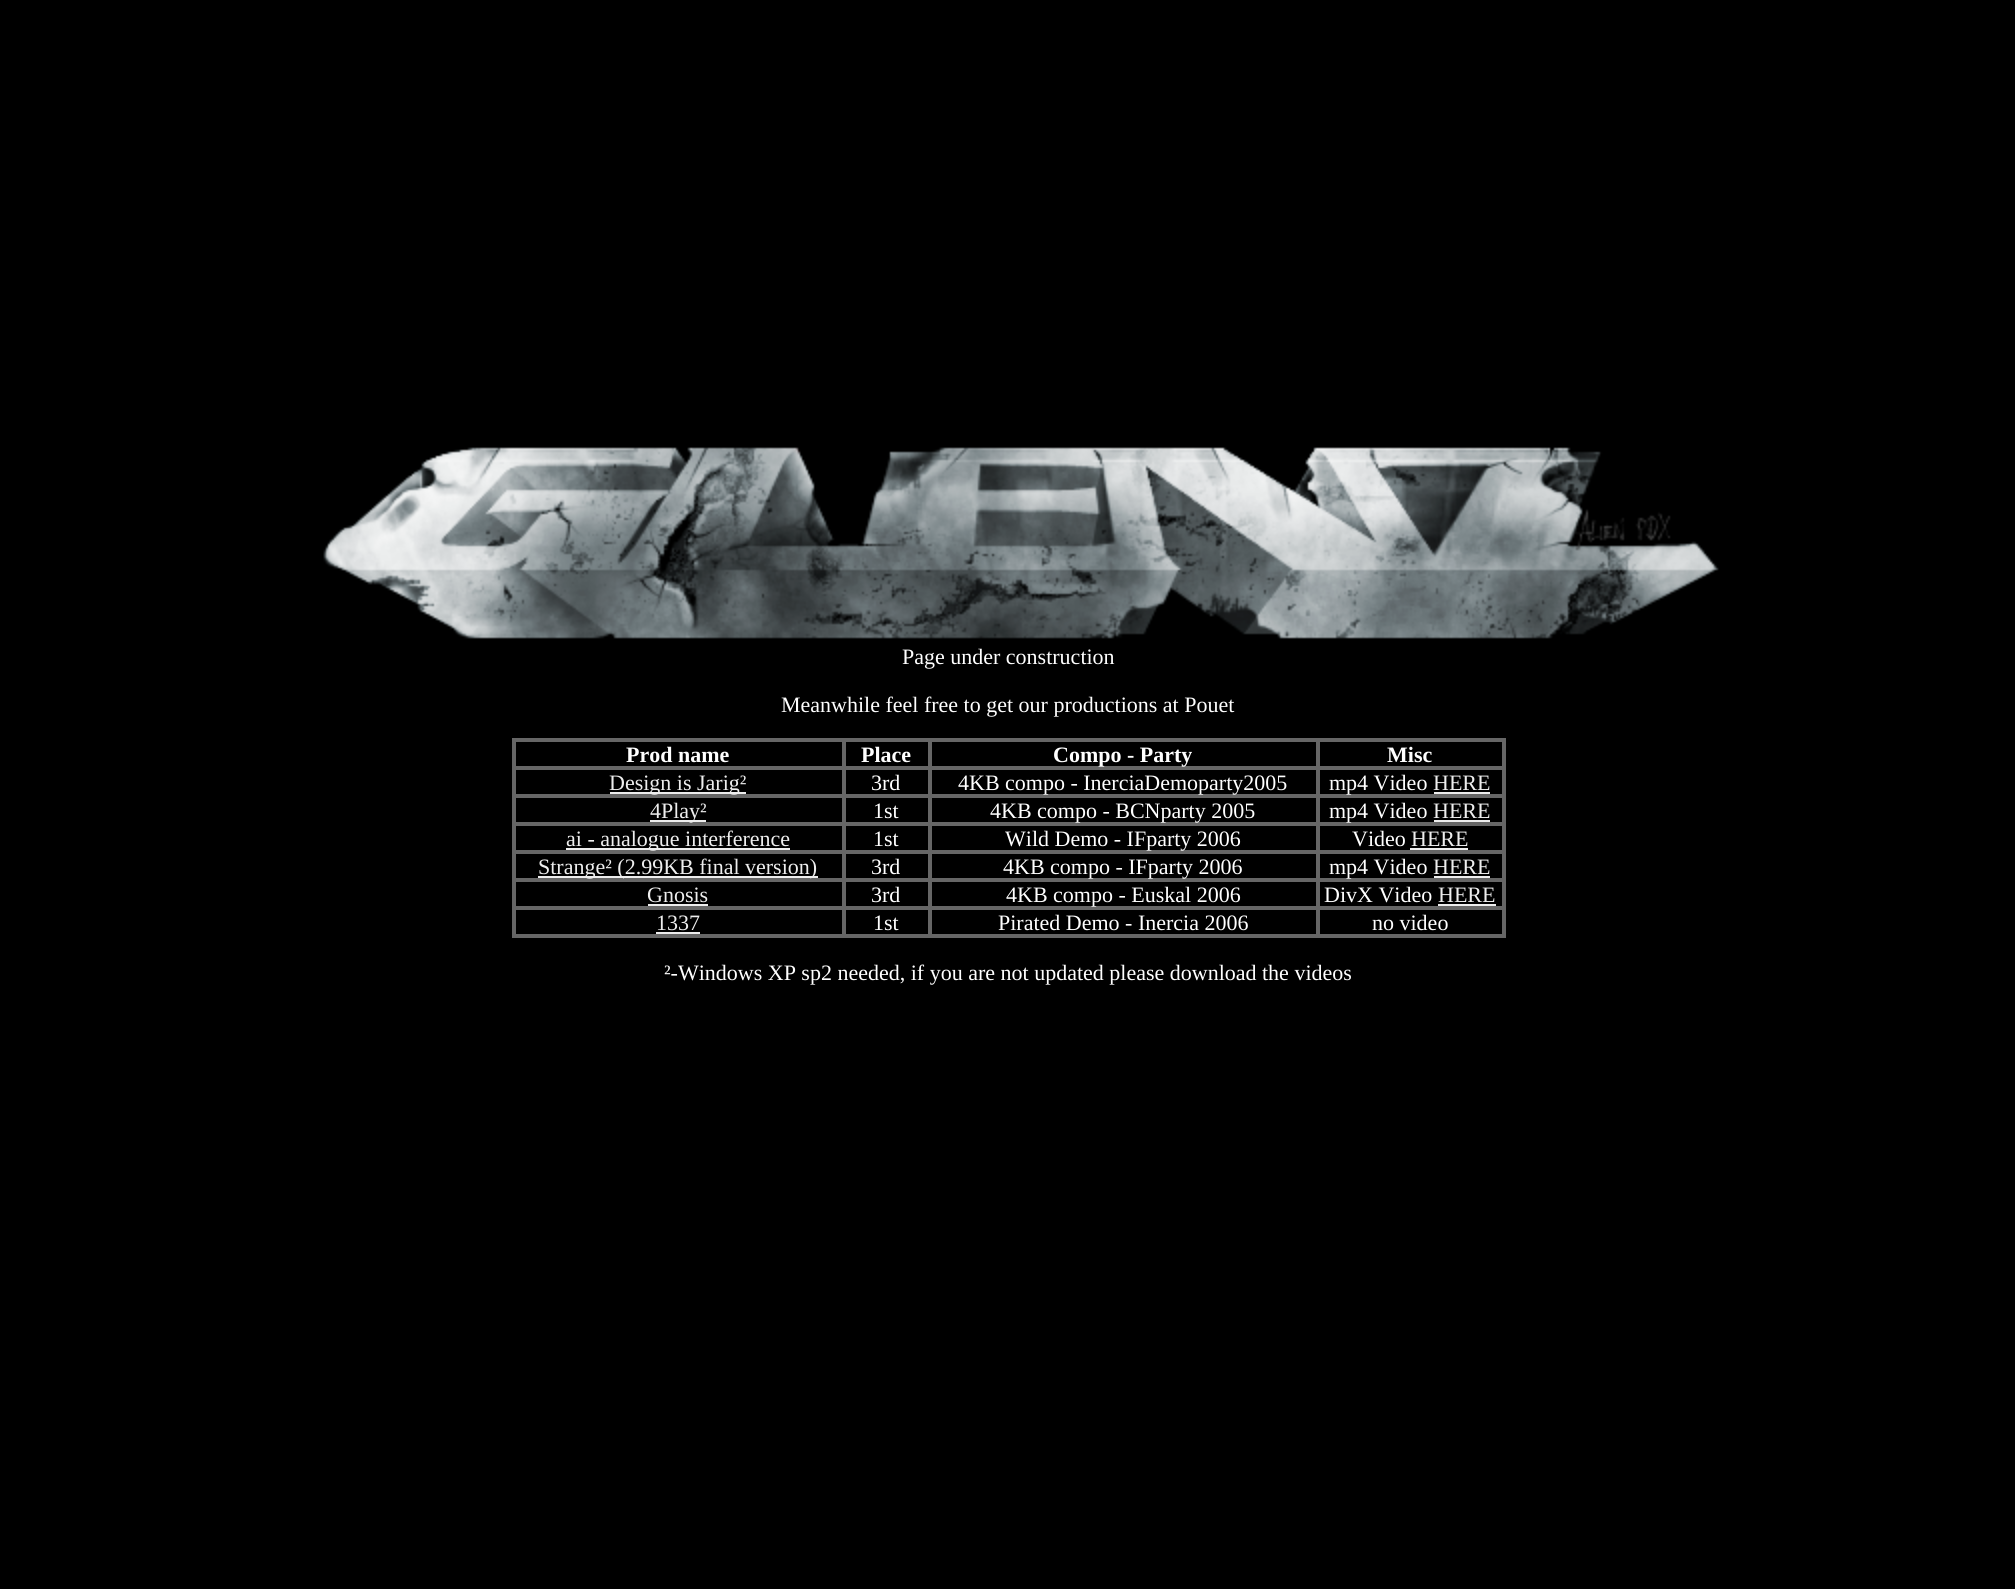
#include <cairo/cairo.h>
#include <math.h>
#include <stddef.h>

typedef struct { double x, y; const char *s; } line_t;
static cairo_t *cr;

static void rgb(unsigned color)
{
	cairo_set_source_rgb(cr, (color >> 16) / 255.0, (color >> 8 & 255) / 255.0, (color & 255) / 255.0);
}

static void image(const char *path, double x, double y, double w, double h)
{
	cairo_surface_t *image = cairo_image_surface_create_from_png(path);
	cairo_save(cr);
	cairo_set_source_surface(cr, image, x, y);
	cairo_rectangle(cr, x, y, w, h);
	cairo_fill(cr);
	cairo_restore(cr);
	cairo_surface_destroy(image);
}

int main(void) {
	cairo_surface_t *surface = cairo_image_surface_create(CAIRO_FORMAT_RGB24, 2015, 1589);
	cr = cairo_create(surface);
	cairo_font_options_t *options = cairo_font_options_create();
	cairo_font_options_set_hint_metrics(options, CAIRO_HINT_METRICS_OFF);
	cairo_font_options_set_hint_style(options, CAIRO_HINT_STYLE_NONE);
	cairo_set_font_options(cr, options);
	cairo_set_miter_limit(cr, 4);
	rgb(0x000000);
	cairo_paint(cr);
	image("img/1.png", 323, 447, 1396, 192);
	cairo_rectangle(cr, 513, 739, 992, 198);
	rgb(0x666666);
	cairo_stroke(cr);
	cairo_rectangle(cr, 515, 741, 328, 26);
	cairo_stroke(cr);
	cairo_rectangle(cr, 845, 741, 84, 26);
	cairo_stroke(cr);
	cairo_rectangle(cr, 931, 741, 386, 26);
	cairo_stroke(cr);
	cairo_rectangle(cr, 1319, 741, 184, 26);
	cairo_stroke(cr);
	cairo_rectangle(cr, 515, 769, 328, 26);
	cairo_stroke(cr);
	rgb(0xeeeeee);
	cairo_rectangle(cr, 610, 792, 136, 2);
	cairo_fill(cr);
	cairo_rectangle(cr, 845, 769, 84, 26);
	rgb(0x666666);
	cairo_stroke(cr);
	cairo_rectangle(cr, 931, 769, 386, 26);
	cairo_stroke(cr);
	cairo_rectangle(cr, 1319, 769, 184, 26);
	cairo_stroke(cr);
	rgb(0xeeeeee);
	cairo_rectangle(cr, 1434, 792, 56, 2);
	cairo_fill(cr);
	cairo_rectangle(cr, 515, 797, 328, 26);
	rgb(0x666666);
	cairo_stroke(cr);
	rgb(0xeeeeee);
	cairo_rectangle(cr, 650, 820, 56, 2);
	cairo_fill(cr);
	cairo_rectangle(cr, 845, 797, 84, 26);
	rgb(0x666666);
	cairo_stroke(cr);
	cairo_rectangle(cr, 931, 797, 386, 26);
	cairo_stroke(cr);
	cairo_rectangle(cr, 1319, 797, 184, 26);
	cairo_stroke(cr);
	rgb(0xeeeeee);
	cairo_rectangle(cr, 1434, 820, 56, 2);
	cairo_fill(cr);
	cairo_rectangle(cr, 515, 825, 328, 26);
	rgb(0x666666);
	cairo_stroke(cr);
	rgb(0xeeeeee);
	cairo_rectangle(cr, 566, 848, 224, 2);
	cairo_fill(cr);
	cairo_rectangle(cr, 845, 825, 84, 26);
	rgb(0x666666);
	cairo_stroke(cr);
	cairo_rectangle(cr, 931, 825, 386, 26);
	cairo_stroke(cr);
	cairo_rectangle(cr, 1319, 825, 184, 26);
	cairo_stroke(cr);
	rgb(0xeeeeee);
	cairo_rectangle(cr, 1410, 848, 58, 2);
	cairo_fill(cr);
	cairo_rectangle(cr, 515, 853, 328, 26);
	rgb(0x666666);
	cairo_stroke(cr);
	rgb(0xeeeeee);
	cairo_rectangle(cr, 538, 876, 280, 2);
	cairo_fill(cr);
	cairo_rectangle(cr, 845, 853, 84, 26);
	rgb(0x666666);
	cairo_stroke(cr);
	cairo_rectangle(cr, 931, 853, 386, 26);
	cairo_stroke(cr);
	cairo_rectangle(cr, 1319, 853, 184, 26);
	cairo_stroke(cr);
	rgb(0xeeeeee);
	cairo_rectangle(cr, 1434, 876, 56, 2);
	cairo_fill(cr);
	cairo_rectangle(cr, 515, 881, 328, 26);
	rgb(0x666666);
	cairo_stroke(cr);
	rgb(0xeeeeee);
	cairo_rectangle(cr, 648, 904, 60, 2);
	cairo_fill(cr);
	cairo_rectangle(cr, 845, 881, 84, 26);
	rgb(0x666666);
	cairo_stroke(cr);
	cairo_rectangle(cr, 931, 881, 386, 26);
	cairo_stroke(cr);
	cairo_rectangle(cr, 1319, 881, 184, 26);
	cairo_stroke(cr);
	rgb(0xeeeeee);
	cairo_rectangle(cr, 1438, 904, 58, 2);
	cairo_fill(cr);
	cairo_rectangle(cr, 515, 909, 328, 26);
	rgb(0x666666);
	cairo_stroke(cr);
	rgb(0xeeeeee);
	cairo_rectangle(cr, 656, 932, 44, 2);
	cairo_fill(cr);
	cairo_rectangle(cr, 845, 909, 84, 26);
	rgb(0x666666);
	cairo_stroke(cr);
	cairo_rectangle(cr, 931, 909, 386, 26);
	cairo_stroke(cr);
	cairo_rectangle(cr, 1319, 909, 184, 26);
	cairo_stroke(cr);
	cairo_select_font_face(cr, "Liberation Serif", CAIRO_FONT_SLANT_NORMAL, CAIRO_FONT_WEIGHT_NORMAL);
	cairo_set_font_size(cr, 22);
	rgb(0xffffff);
	cairo_move_to(cr, 902, 664);
	cairo_show_text(cr, "Page under construction");
	cairo_move_to(cr, 781, 712);
	cairo_show_text(cr, "Meanwhile feel free to get our productions at Pouet");
	cairo_select_font_face(cr, "Liberation Serif", CAIRO_FONT_SLANT_NORMAL, CAIRO_FONT_WEIGHT_BOLD);
	{
		static const line_t items[] = {
			{626, 762, "Prod name"},
			{861, 762, "Place"},
			{1053, 762, "Compo - Party"},
			{1387, 762, "Misc"},
		};
		for (size_t i = 0; i < sizeof items / sizeof *items; i++) {
			cairo_move_to(cr, items[i].x, items[i].y);
			cairo_show_text(cr, items[i].s);
		}
	}
	cairo_select_font_face(cr, "Liberation Serif", CAIRO_FONT_SLANT_NORMAL, CAIRO_FONT_WEIGHT_NORMAL);
	rgb(0xeeeeee);
	cairo_move_to(cr, 609, 790);
	cairo_show_text(cr, "Design is Jarig²");
	rgb(0xffffff);
	{
		static const line_t items[] = {
			{871, 790, "3rd"},
			{958, 790, "4KB compo - InerciaDemoparty2005"},
			{1329, 790, "mp4 Video"},
		};
		for (size_t i = 0; i < sizeof items / sizeof *items; i++) {
			cairo_move_to(cr, items[i].x, items[i].y);
			cairo_show_text(cr, items[i].s);
		}
	}
	rgb(0xeeeeee);
	cairo_move_to(cr, 1433, 790);
	cairo_show_text(cr, "HERE");
	cairo_move_to(cr, 650, 818);
	cairo_show_text(cr, "4Play²");
	rgb(0xffffff);
	{
		static const line_t items[] = {
			{873, 818, "1st"},
			{990, 818, "4KB compo - BCNparty 2005"},
			{1329, 818, "mp4 Video"},
		};
		for (size_t i = 0; i < sizeof items / sizeof *items; i++) {
			cairo_move_to(cr, items[i].x, items[i].y);
			cairo_show_text(cr, items[i].s);
		}
	}
	rgb(0xeeeeee);
	cairo_move_to(cr, 1433, 818);
	cairo_show_text(cr, "HERE");
	cairo_move_to(cr, 566, 846);
	cairo_show_text(cr, "ai - analogue interference");
	rgb(0xffffff);
	{
		static const line_t items[] = {
			{873, 846, "1st"},
			{1005, 846, "Wild Demo - IFparty 2006"},
			{1352, 846, "Video"},
		};
		for (size_t i = 0; i < sizeof items / sizeof *items; i++) {
			cairo_move_to(cr, items[i].x, items[i].y);
			cairo_show_text(cr, items[i].s);
		}
	}
	rgb(0xeeeeee);
	cairo_move_to(cr, 1411, 846);
	cairo_show_text(cr, "HERE");
	cairo_move_to(cr, 538, 874);
	cairo_show_text(cr, "Strange² (2.99KB final version)");
	rgb(0xffffff);
	{
		static const line_t items[] = {
			{871, 874, "3rd"},
			{1003, 874, "4KB compo - IFparty 2006"},
			{1329, 874, "mp4 Video"},
		};
		for (size_t i = 0; i < sizeof items / sizeof *items; i++) {
			cairo_move_to(cr, items[i].x, items[i].y);
			cairo_show_text(cr, items[i].s);
		}
	}
	rgb(0xeeeeee);
	cairo_move_to(cr, 1433, 874);
	cairo_show_text(cr, "HERE");
	cairo_move_to(cr, 647, 902);
	cairo_show_text(cr, "Gnosis");
	rgb(0xffffff);
	{
		static const line_t items[] = {
			{871, 902, "3rd"},
			{1006, 902, "4KB compo - Euskal 2006"},
			{1324, 902, "DivX Video"},
		};
		for (size_t i = 0; i < sizeof items / sizeof *items; i++) {
			cairo_move_to(cr, items[i].x, items[i].y);
			cairo_show_text(cr, items[i].s);
		}
	}
	rgb(0xeeeeee);
	cairo_move_to(cr, 1438, 902);
	cairo_show_text(cr, "HERE");
	cairo_move_to(cr, 656, 930);
	cairo_show_text(cr, "1337");
	rgb(0xffffff);
	{
		static const line_t items[] = {
			{873, 930, "1st"},
			{998, 930, "Pirated Demo - Inercia 2006"},
			{1372, 930, "no video"},
			{664, 980, "²-Windows XP sp2 needed, if you are not updated please download the videos"},
		};
		for (size_t i = 0; i < sizeof items / sizeof *items; i++) {
			cairo_move_to(cr, items[i].x, items[i].y);
			cairo_show_text(cr, items[i].s);
		}
	}
	cairo_surface_write_to_png(surface, "page.png");
	cairo_font_options_destroy(options);
	cairo_destroy(cr);
	cairo_surface_destroy(surface);
	return 0;
}
